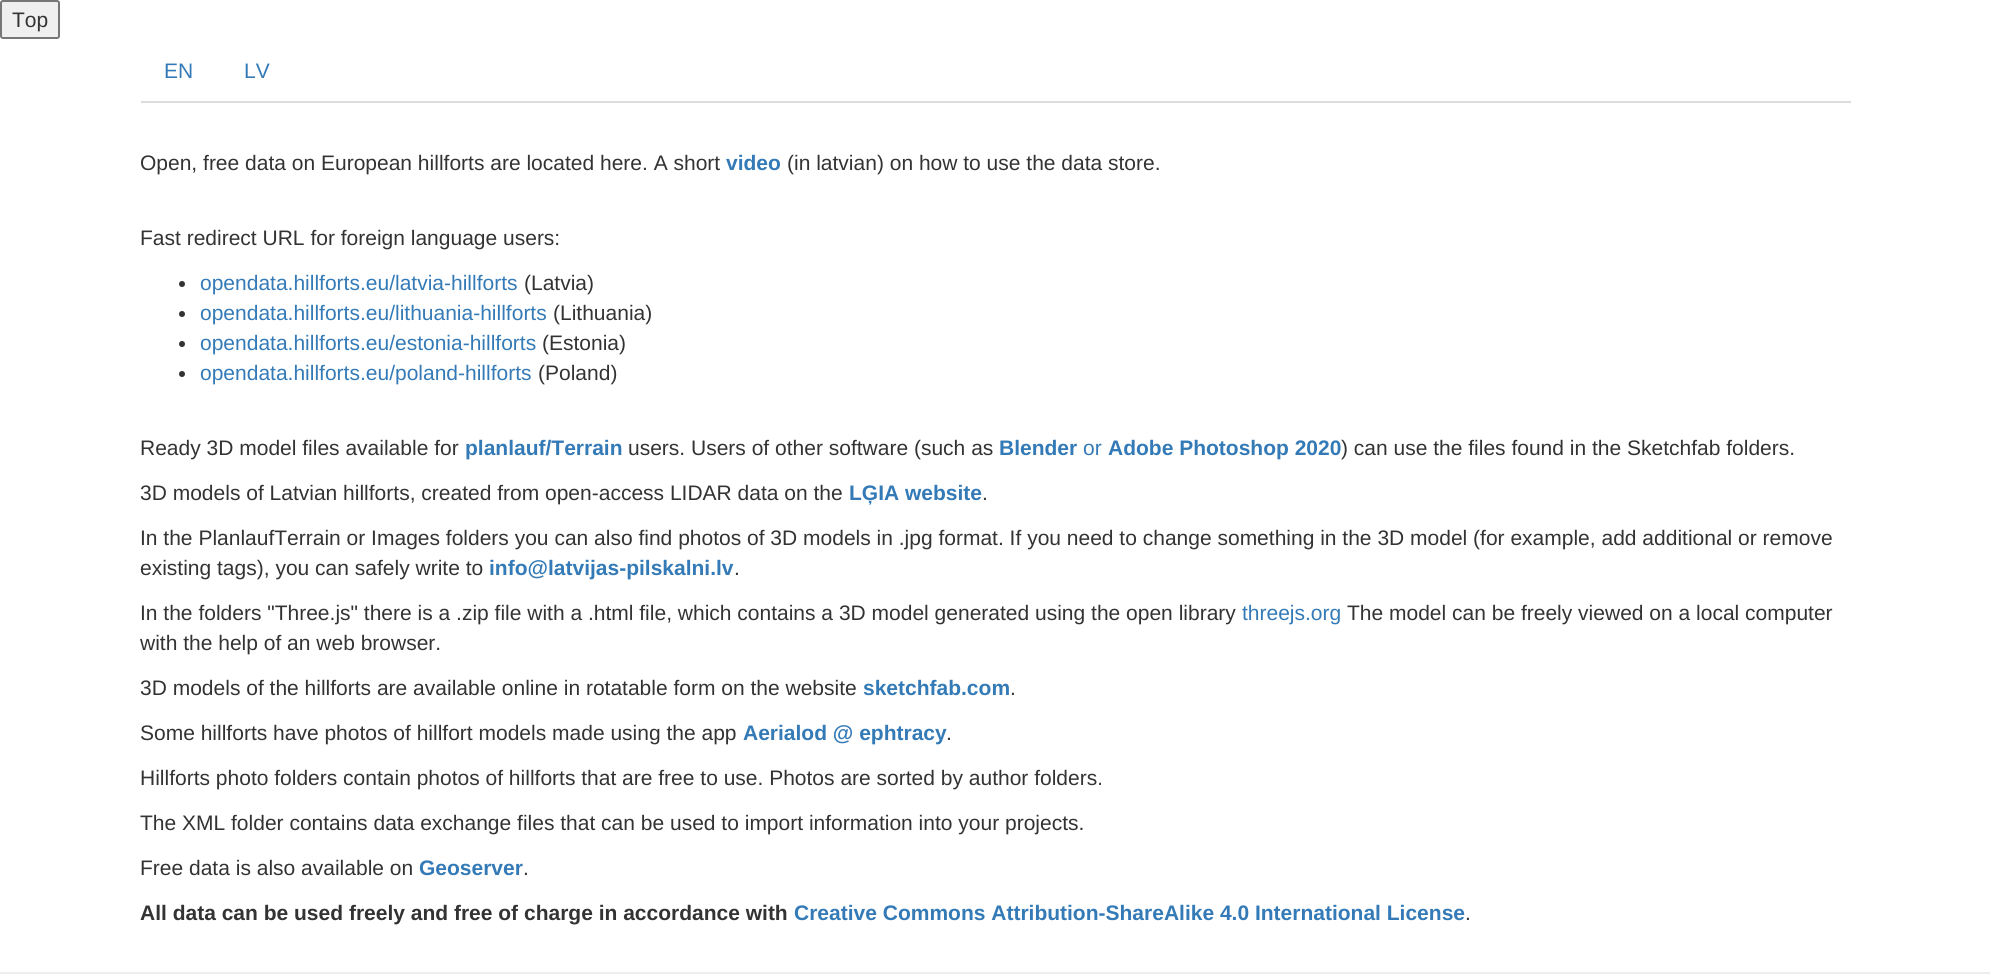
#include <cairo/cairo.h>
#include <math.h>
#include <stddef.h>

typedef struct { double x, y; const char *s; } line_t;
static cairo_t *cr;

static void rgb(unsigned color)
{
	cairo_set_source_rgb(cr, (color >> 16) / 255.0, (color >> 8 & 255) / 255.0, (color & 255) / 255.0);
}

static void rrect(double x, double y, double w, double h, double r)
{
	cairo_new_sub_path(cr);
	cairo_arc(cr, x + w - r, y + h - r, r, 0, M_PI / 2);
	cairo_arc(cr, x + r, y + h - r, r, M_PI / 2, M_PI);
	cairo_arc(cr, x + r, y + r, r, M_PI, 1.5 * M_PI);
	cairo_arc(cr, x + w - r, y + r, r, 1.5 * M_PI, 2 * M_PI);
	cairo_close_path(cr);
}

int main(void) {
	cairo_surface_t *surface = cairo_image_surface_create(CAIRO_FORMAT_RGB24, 1990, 975);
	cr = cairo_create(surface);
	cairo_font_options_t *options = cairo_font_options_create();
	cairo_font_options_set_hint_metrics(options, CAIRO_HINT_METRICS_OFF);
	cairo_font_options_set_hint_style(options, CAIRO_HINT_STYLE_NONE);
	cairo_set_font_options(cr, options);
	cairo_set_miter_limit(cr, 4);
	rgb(0xffffff);
	cairo_paint(cr);
	rgb(0xefefef);
	rrect(1, 1, 58, 37, 2);
	cairo_fill_preserve(cr);
	rgb(0x767676);
	cairo_stroke(cr);
	rgb(0xdddddd);
	cairo_rectangle(cr, 141, 101, 1710, 2);
	cairo_fill(cr);
	rgb(0x333333);
	cairo_arc(cr, 182, 284, 3, 0, 2 * M_PI);
	cairo_fill(cr);
	cairo_arc(cr, 182, 314, 3, 0, 2 * M_PI);
	cairo_fill(cr);
	cairo_arc(cr, 182, 344, 3, 0, 2 * M_PI);
	cairo_fill(cr);
	cairo_arc(cr, 182, 374, 3, 0, 2 * M_PI);
	cairo_fill(cr);
	rgb(0xeeeeee);
	cairo_rectangle(cr, 0, 972, 1990, 2);
	cairo_fill(cr);
	cairo_select_font_face(cr, "Liberation Sans", CAIRO_FONT_SLANT_NORMAL, CAIRO_FONT_WEIGHT_NORMAL);
	cairo_set_font_size(cr, 21);
	rgb(0x333333);
	cairo_move_to(cr, 12, 27);
	cairo_show_text(cr, "Top");
	rgb(0x337ab7);
	cairo_move_to(cr, 164, 78);
	cairo_show_text(cr, "EN");
	cairo_move_to(cr, 244, 78);
	cairo_show_text(cr, "LV");
	rgb(0x333333);
	cairo_move_to(cr, 140, 170);
	cairo_show_text(cr, "Open, free data on European hillforts are located here. A short");
	cairo_select_font_face(cr, "Liberation Sans", CAIRO_FONT_SLANT_NORMAL, CAIRO_FONT_WEIGHT_BOLD);
	rgb(0x337ab7);
	cairo_move_to(cr, 726, 170);
	cairo_show_text(cr, "video");
	cairo_select_font_face(cr, "Liberation Sans", CAIRO_FONT_SLANT_NORMAL, CAIRO_FONT_WEIGHT_NORMAL);
	rgb(0x333333);
	cairo_move_to(cr, 787, 170);
	cairo_show_text(cr, "(in latvian) on how to use the data store.");
	cairo_move_to(cr, 140, 245);
	cairo_show_text(cr, "Fast redirect URL for foreign language users:");
	rgb(0x337ab7);
	cairo_move_to(cr, 200, 290);
	cairo_show_text(cr, "opendata.hillforts.eu/latvia-hillforts");
	rgb(0x333333);
	cairo_move_to(cr, 524, 290);
	cairo_show_text(cr, "(Latvia)");
	rgb(0x337ab7);
	cairo_move_to(cr, 200, 320);
	cairo_show_text(cr, "opendata.hillforts.eu/lithuania-hillforts");
	rgb(0x333333);
	cairo_move_to(cr, 553, 320);
	cairo_show_text(cr, "(Lithuania)");
	rgb(0x337ab7);
	cairo_move_to(cr, 200, 350);
	cairo_show_text(cr, "opendata.hillforts.eu/estonia-hillforts");
	rgb(0x333333);
	cairo_move_to(cr, 542, 350);
	cairo_show_text(cr, "(Estonia)");
	rgb(0x337ab7);
	cairo_move_to(cr, 200, 380);
	cairo_show_text(cr, "opendata.hillforts.eu/poland-hillforts");
	rgb(0x333333);
	cairo_move_to(cr, 538, 380);
	cairo_show_text(cr, "(Poland)");
	cairo_move_to(cr, 140, 455);
	cairo_show_text(cr, "Ready 3D model files available for");
	cairo_select_font_face(cr, "Liberation Sans", CAIRO_FONT_SLANT_NORMAL, CAIRO_FONT_WEIGHT_BOLD);
	rgb(0x337ab7);
	cairo_move_to(cr, 465, 455);
	cairo_show_text(cr, "planlauf/Terrain");
	cairo_select_font_face(cr, "Liberation Sans", CAIRO_FONT_SLANT_NORMAL, CAIRO_FONT_WEIGHT_NORMAL);
	rgb(0x333333);
	cairo_move_to(cr, 628, 455);
	cairo_show_text(cr, "users. Users of other software (such as");
	cairo_select_font_face(cr, "Liberation Sans", CAIRO_FONT_SLANT_NORMAL, CAIRO_FONT_WEIGHT_BOLD);
	rgb(0x337ab7);
	cairo_move_to(cr, 999, 455);
	cairo_show_text(cr, "Blender");
	cairo_select_font_face(cr, "Liberation Sans", CAIRO_FONT_SLANT_NORMAL, CAIRO_FONT_WEIGHT_NORMAL);
	cairo_move_to(cr, 1083, 455);
	cairo_show_text(cr, "or");
	cairo_select_font_face(cr, "Liberation Sans", CAIRO_FONT_SLANT_NORMAL, CAIRO_FONT_WEIGHT_BOLD);
	cairo_move_to(cr, 1108, 455);
	cairo_show_text(cr, "Adobe Photoshop 2020");
	cairo_select_font_face(cr, "Liberation Sans", CAIRO_FONT_SLANT_NORMAL, CAIRO_FONT_WEIGHT_NORMAL);
	rgb(0x333333);
	cairo_move_to(cr, 1341, 455);
	cairo_show_text(cr, ") can use the files found in the Sketchfab folders.");
	cairo_move_to(cr, 140, 500);
	cairo_show_text(cr, "3D models of Latvian hillforts, created from open-access LIDAR data on the");
	cairo_select_font_face(cr, "Liberation Sans", CAIRO_FONT_SLANT_NORMAL, CAIRO_FONT_WEIGHT_BOLD);
	rgb(0x337ab7);
	cairo_move_to(cr, 849, 500);
	cairo_show_text(cr, "LĢIA website");
	cairo_select_font_face(cr, "Liberation Sans", CAIRO_FONT_SLANT_NORMAL, CAIRO_FONT_WEIGHT_NORMAL);
	rgb(0x333333);
	{
		static const line_t items[] = {
			{982, 500, "."},
			{140, 545, "In the PlanlaufTerrain or Images folders you can also find photos of 3D models in .jpg format. If you need to change something in the 3D model (for example, add additional or remove"},
			{140, 575, "existing tags), you can safely write to"},
		};
		for (size_t i = 0; i < sizeof items / sizeof *items; i++) {
			cairo_move_to(cr, items[i].x, items[i].y);
			cairo_show_text(cr, items[i].s);
		}
	}
	cairo_select_font_face(cr, "Liberation Sans", CAIRO_FONT_SLANT_NORMAL, CAIRO_FONT_WEIGHT_BOLD);
	rgb(0x337ab7);
	cairo_move_to(cr, 489, 575);
	cairo_show_text(cr, "info@latvijas-pilskalni.lv");
	cairo_select_font_face(cr, "Liberation Sans", CAIRO_FONT_SLANT_NORMAL, CAIRO_FONT_WEIGHT_NORMAL);
	rgb(0x333333);
	cairo_move_to(cr, 734, 575);
	cairo_show_text(cr, ".");
	cairo_move_to(cr, 140, 620);
	cairo_show_text(cr, "In the folders \"Three.js\" there is a .zip file with a .html file, which contains a 3D model generated using the open library");
	rgb(0x337ab7);
	cairo_move_to(cr, 1242, 620);
	cairo_show_text(cr, "threejs.org");
	rgb(0x333333);
	{
		static const line_t items[] = {
			{1347, 620, "The model can be freely viewed on a local computer"},
			{140, 650, "with the help of an web browser."},
			{140, 695, "3D models of the hillforts are available online in rotatable form on the website"},
		};
		for (size_t i = 0; i < sizeof items / sizeof *items; i++) {
			cairo_move_to(cr, items[i].x, items[i].y);
			cairo_show_text(cr, items[i].s);
		}
	}
	cairo_select_font_face(cr, "Liberation Sans", CAIRO_FONT_SLANT_NORMAL, CAIRO_FONT_WEIGHT_BOLD);
	rgb(0x337ab7);
	cairo_move_to(cr, 863, 695);
	cairo_show_text(cr, "sketchfab.com");
	cairo_select_font_face(cr, "Liberation Sans", CAIRO_FONT_SLANT_NORMAL, CAIRO_FONT_WEIGHT_NORMAL);
	rgb(0x333333);
	cairo_move_to(cr, 1010, 695);
	cairo_show_text(cr, ".");
	cairo_move_to(cr, 140, 740);
	cairo_show_text(cr, "Some hillforts have photos of hillfort models made using the app");
	cairo_select_font_face(cr, "Liberation Sans", CAIRO_FONT_SLANT_NORMAL, CAIRO_FONT_WEIGHT_BOLD);
	rgb(0x337ab7);
	cairo_move_to(cr, 743, 740);
	cairo_show_text(cr, "Aerialod @ ephtracy");
	cairo_select_font_face(cr, "Liberation Sans", CAIRO_FONT_SLANT_NORMAL, CAIRO_FONT_WEIGHT_NORMAL);
	rgb(0x333333);
	{
		static const line_t items[] = {
			{946, 740, "."},
			{140, 785, "Hillforts photo folders contain photos of hillforts that are free to use. Photos are sorted by author folders."},
			{140, 830, "The XML folder contains data exchange files that can be used to import information into your projects."},
			{140, 875, "Free data is also available on"},
		};
		for (size_t i = 0; i < sizeof items / sizeof *items; i++) {
			cairo_move_to(cr, items[i].x, items[i].y);
			cairo_show_text(cr, items[i].s);
		}
	}
	cairo_select_font_face(cr, "Liberation Sans", CAIRO_FONT_SLANT_NORMAL, CAIRO_FONT_WEIGHT_BOLD);
	rgb(0x337ab7);
	cairo_move_to(cr, 419, 875);
	cairo_show_text(cr, "Geoserver");
	cairo_select_font_face(cr, "Liberation Sans", CAIRO_FONT_SLANT_NORMAL, CAIRO_FONT_WEIGHT_NORMAL);
	rgb(0x333333);
	cairo_move_to(cr, 523, 875);
	cairo_show_text(cr, ".");
	cairo_select_font_face(cr, "Liberation Sans", CAIRO_FONT_SLANT_NORMAL, CAIRO_FONT_WEIGHT_BOLD);
	cairo_move_to(cr, 140, 920);
	cairo_show_text(cr, "All data can be used freely and free of charge in accordance with");
	rgb(0x337ab7);
	cairo_move_to(cr, 794, 920);
	cairo_show_text(cr, "Creative Commons Attribution-ShareAlike 4.0 International License");
	cairo_select_font_face(cr, "Liberation Sans", CAIRO_FONT_SLANT_NORMAL, CAIRO_FONT_WEIGHT_NORMAL);
	rgb(0x333333);
	cairo_move_to(cr, 1465, 920);
	cairo_show_text(cr, ".");
	cairo_surface_write_to_png(surface, "page.png");
	cairo_font_options_destroy(options);
	cairo_destroy(cr);
	cairo_surface_destroy(surface);
	return 0;
}
